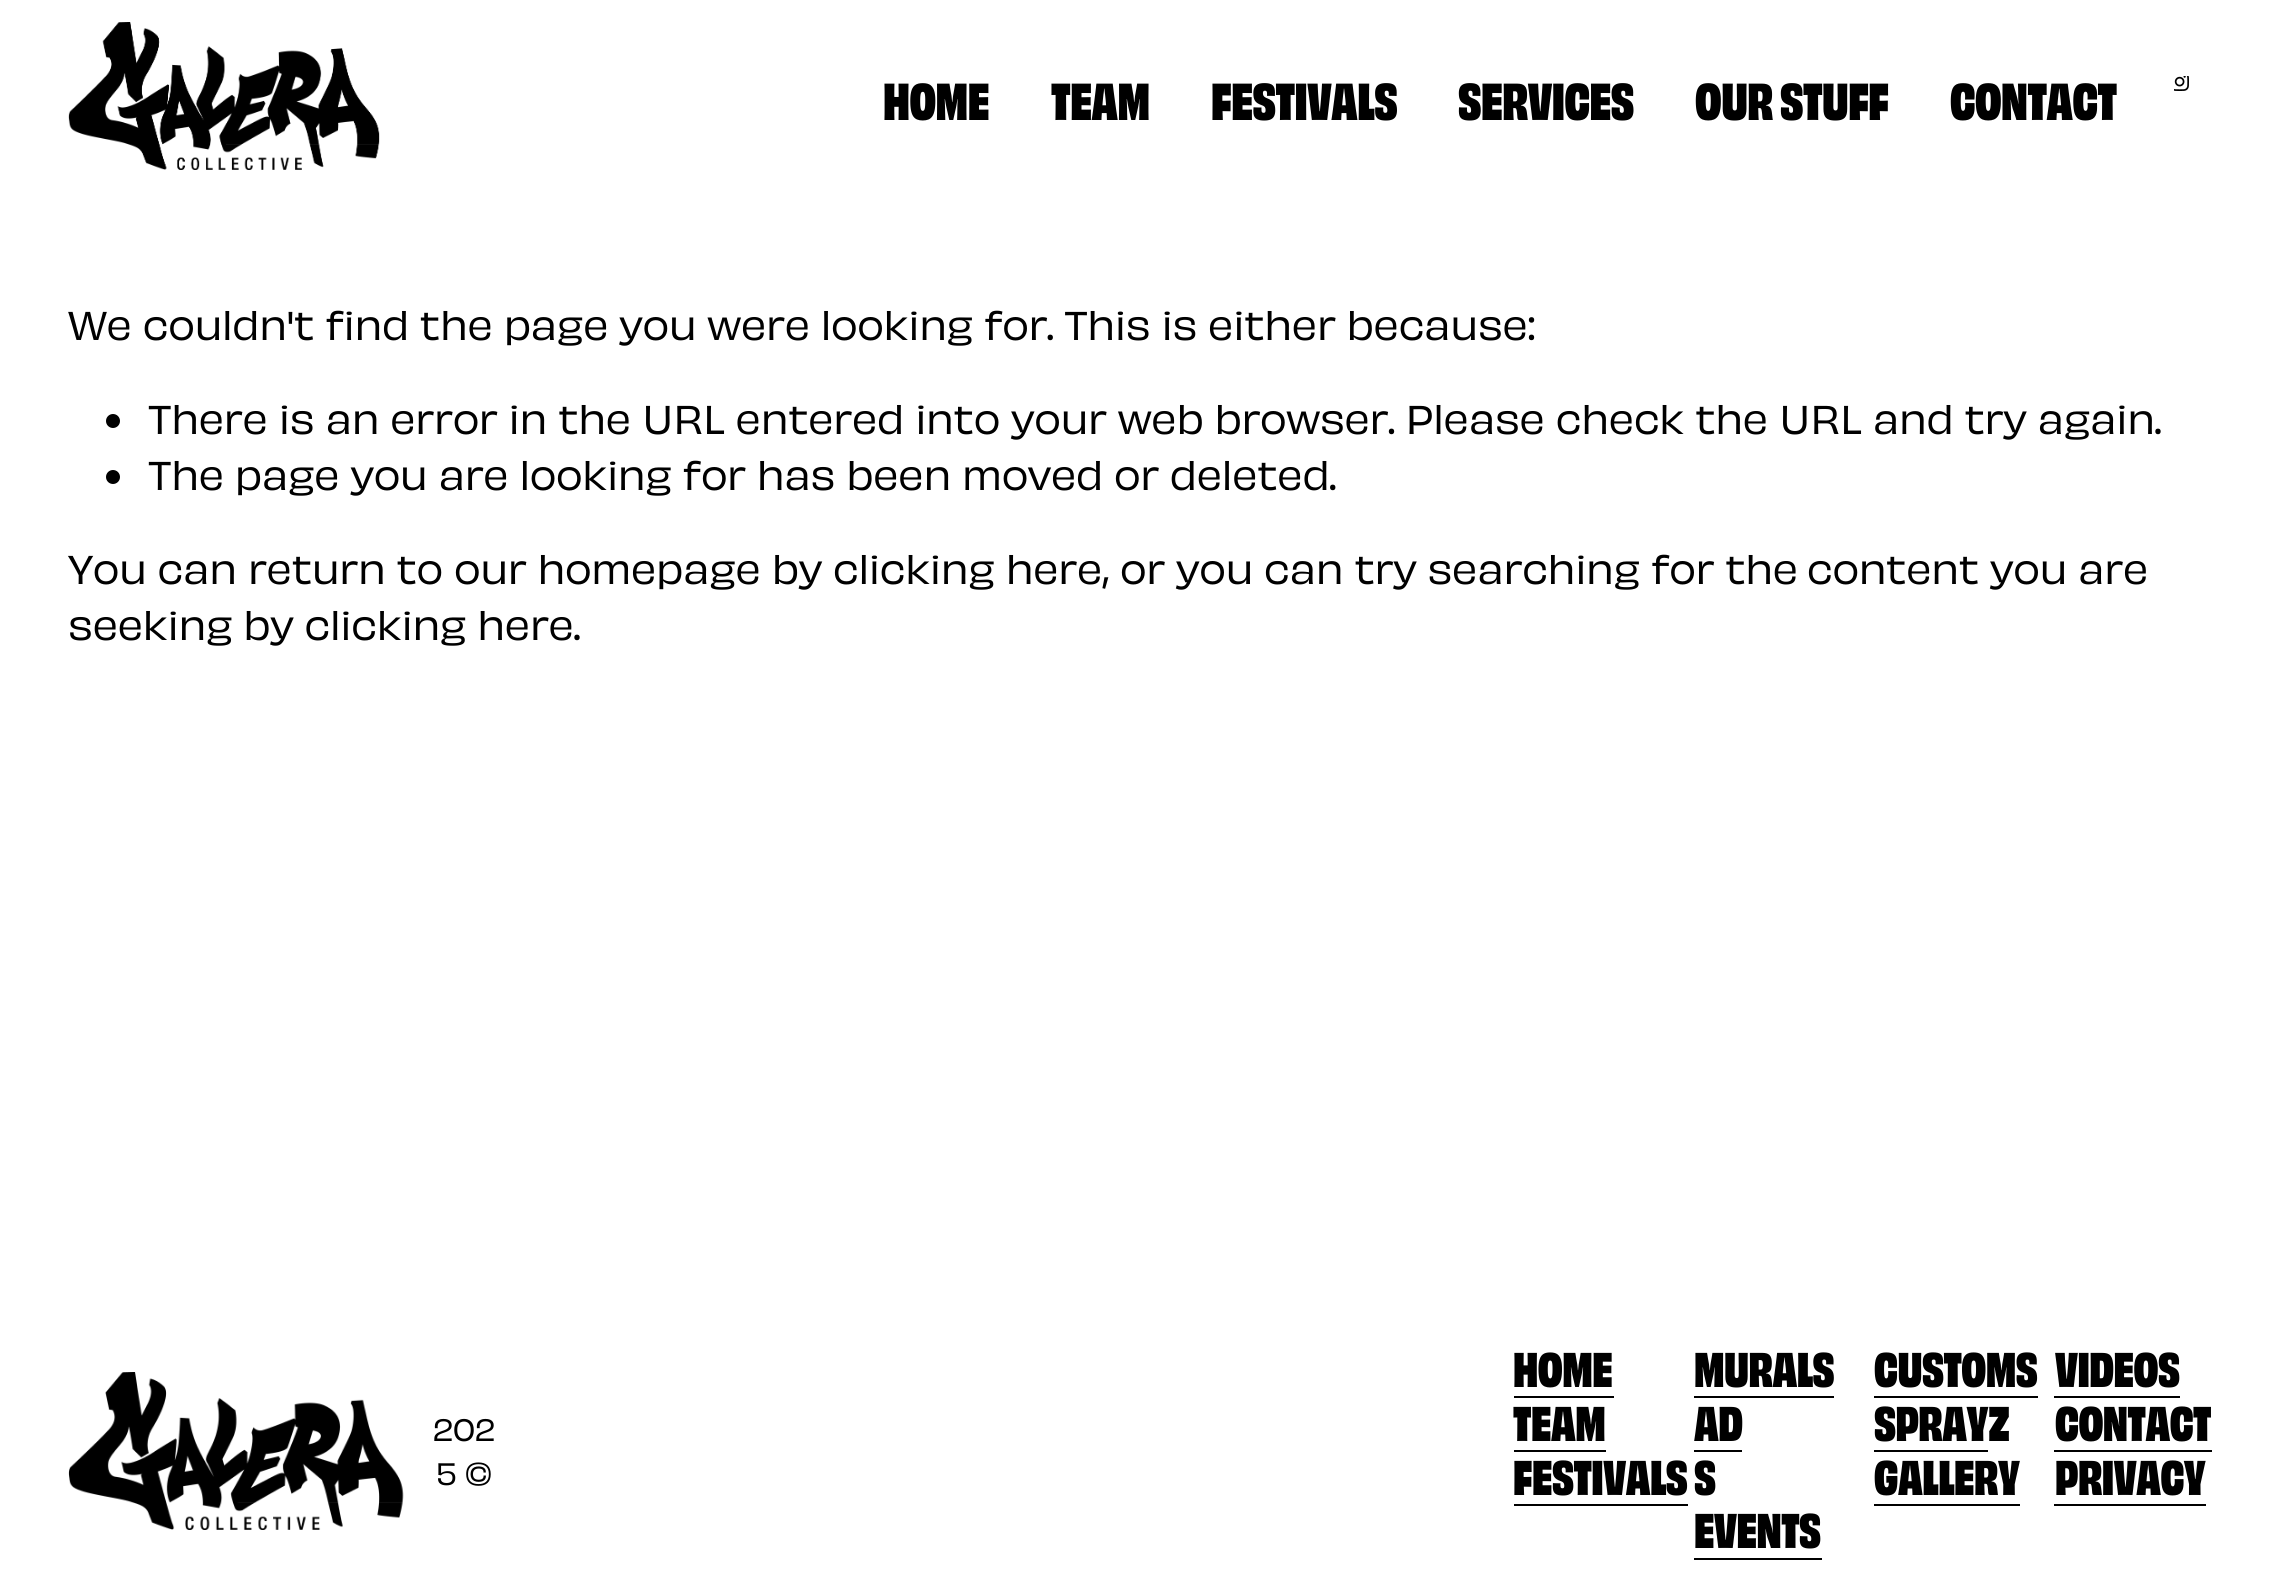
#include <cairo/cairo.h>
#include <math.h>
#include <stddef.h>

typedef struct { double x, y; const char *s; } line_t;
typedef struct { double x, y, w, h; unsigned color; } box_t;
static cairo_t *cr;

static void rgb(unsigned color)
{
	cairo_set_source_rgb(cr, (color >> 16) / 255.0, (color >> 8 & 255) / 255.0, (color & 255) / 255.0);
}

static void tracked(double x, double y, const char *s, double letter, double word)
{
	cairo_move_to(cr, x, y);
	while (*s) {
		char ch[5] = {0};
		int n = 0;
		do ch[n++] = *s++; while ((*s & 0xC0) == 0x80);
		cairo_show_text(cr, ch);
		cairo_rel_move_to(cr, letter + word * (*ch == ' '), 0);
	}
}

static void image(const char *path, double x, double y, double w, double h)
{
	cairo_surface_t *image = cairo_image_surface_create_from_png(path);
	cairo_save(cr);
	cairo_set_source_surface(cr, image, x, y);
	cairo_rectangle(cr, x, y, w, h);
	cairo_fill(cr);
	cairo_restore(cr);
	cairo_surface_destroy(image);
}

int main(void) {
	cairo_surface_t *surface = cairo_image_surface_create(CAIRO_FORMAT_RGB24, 2282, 1585);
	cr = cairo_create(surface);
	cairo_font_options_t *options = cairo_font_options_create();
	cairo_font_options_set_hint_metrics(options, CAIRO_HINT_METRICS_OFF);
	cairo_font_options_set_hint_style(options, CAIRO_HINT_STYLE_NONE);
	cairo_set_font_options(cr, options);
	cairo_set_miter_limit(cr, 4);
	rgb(0xffffff);
	cairo_paint(cr);
	image("img/1.png", 68, 22, 312, 148);
	image("img/2.png", 2174, 76, 15, 15);
	rgb(0x000000);
	cairo_arc(cr, 113, 421, 7, 0, 2 * M_PI);
	cairo_fill(cr);
	cairo_arc(cr, 113, 477, 7, 0, 2 * M_PI);
	cairo_fill(cr);
	image("img/3.png", 68, 1372, 336, 158);
	{
		static const box_t items[] = {
			{1514, 1396, 100, 2, 0x000000},
			{1514, 1450, 92, 2, 0x000000},
			{1514, 1504, 174, 2, 0x000000},
			{1694, 1396, 140, 2, 0x000000},
			{1694, 1450, 48, 2, 0x000000},
			{1694, 1558, 128, 2, 0x000000},
			{1874, 1396, 164, 2, 0x000000},
			{1874, 1450, 114, 2, 0x000000},
			{1874, 1504, 146, 2, 0x000000},
			{2054, 1396, 126, 2, 0x000000},
			{2054, 1450, 158, 2, 0x000000},
			{2054, 1504, 152, 2, 0x000000},
		};
		for (size_t i = 0; i < sizeof items / sizeof *items; i++) {
			rgb(items[i].color);
			cairo_rectangle(cr, items[i].x, items[i].y, items[i].w, items[i].h);
			cairo_fill(cr);
		}
	}
	cairo_select_font_face(cr, "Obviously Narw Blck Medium", CAIRO_FONT_SLANT_NORMAL, CAIRO_FONT_WEIGHT_NORMAL);
	cairo_set_font_size(cr, 48.5);
	{
		static const line_t items[] = {
			{883, 120, "HOME"},
			{1051, 120, "TEAM"},
			{1211, 120, "FESTIVALS"},
			{1458, 120, "SERVICES"},
			{1695, 120, "OUR STUFF"},
			{1950, 120, "CONTACT"},
		};
		for (size_t i = 0; i < sizeof items / sizeof *items; i++) {
			tracked(items[i].x, items[i].y, items[i].s, -0.5, 0);
		}
	}
	cairo_select_font_face(cr, "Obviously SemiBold", CAIRO_FONT_SLANT_NORMAL, CAIRO_FONT_WEIGHT_NORMAL);
	cairo_set_font_size(cr, 37.48);
	tracked(68, 340, "We couldn't find the page you were looking for. This is either because:", -0.37, -0.1);
	tracked(148, 434, "There is an error in the URL entered into your web browser. Please check the URL and try again.", -0.37, 0);
	tracked(148, 490, "The page you are looking for has been moved or deleted.", -0.37, -0.1);
	{
		static const line_t items[] = {
			{68, 584, "You can return to our homepage by clicking here, or you can try searching for the"},
			{1807, 584, "content you are"},
			{68, 640, "seeking by clicking here."},
		};
		for (size_t i = 0; i < sizeof items / sizeof *items; i++) {
			tracked(items[i].x, items[i].y, items[i].s, -0.37, 0);
		}
	}
	cairo_set_font_size(cr, 29);
	tracked(433, 1441, "202", -0.37, 0);
	tracked(436, 1485, "5 ©", -0.37, 0);
	cairo_select_font_face(cr, "Obviously Narw Blck Medium", CAIRO_FONT_SLANT_NORMAL, CAIRO_FONT_WEIGHT_NORMAL);
	cairo_set_font_size(cr, 45.5);
	{
		static const line_t items[] = {
			{1513, 1387, "HOME"},
			{1513, 1441, "TEAM"},
			{1513, 1495, "FESTIVALS"},
			{1694, 1387, "MURALS"},
			{1694, 1441, "AD"},
			{1694, 1495, "S"},
			{1694, 1548, "EVENTS"},
			{1874, 1387, "CUSTOMS"},
			{1874, 1441, "SPRAYZ"},
			{1874, 1495, "GALLERY"},
			{2055, 1387, "VIDEOS"},
			{2055, 1441, "CONTACT"},
			{2055, 1495, "PRIVACY"},
		};
		for (size_t i = 0; i < sizeof items / sizeof *items; i++) {
			tracked(items[i].x, items[i].y, items[i].s, -0.5, 0);
		}
	}
	cairo_surface_write_to_png(surface, "page.png");
	cairo_font_options_destroy(options);
	cairo_destroy(cr);
	cairo_surface_destroy(surface);
	return 0;
}
